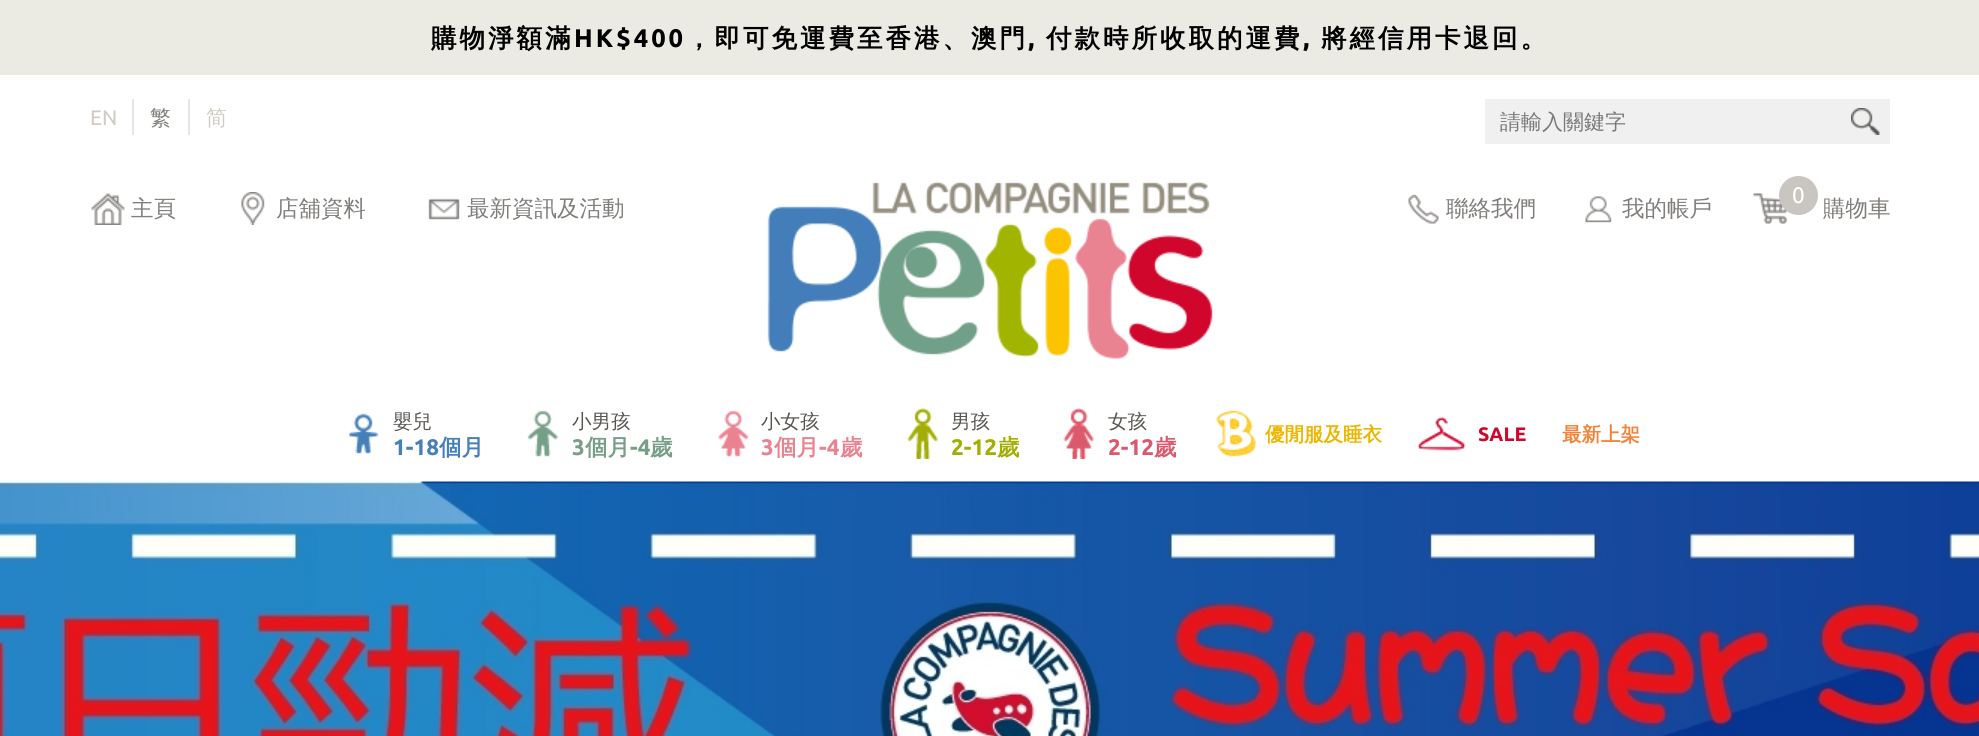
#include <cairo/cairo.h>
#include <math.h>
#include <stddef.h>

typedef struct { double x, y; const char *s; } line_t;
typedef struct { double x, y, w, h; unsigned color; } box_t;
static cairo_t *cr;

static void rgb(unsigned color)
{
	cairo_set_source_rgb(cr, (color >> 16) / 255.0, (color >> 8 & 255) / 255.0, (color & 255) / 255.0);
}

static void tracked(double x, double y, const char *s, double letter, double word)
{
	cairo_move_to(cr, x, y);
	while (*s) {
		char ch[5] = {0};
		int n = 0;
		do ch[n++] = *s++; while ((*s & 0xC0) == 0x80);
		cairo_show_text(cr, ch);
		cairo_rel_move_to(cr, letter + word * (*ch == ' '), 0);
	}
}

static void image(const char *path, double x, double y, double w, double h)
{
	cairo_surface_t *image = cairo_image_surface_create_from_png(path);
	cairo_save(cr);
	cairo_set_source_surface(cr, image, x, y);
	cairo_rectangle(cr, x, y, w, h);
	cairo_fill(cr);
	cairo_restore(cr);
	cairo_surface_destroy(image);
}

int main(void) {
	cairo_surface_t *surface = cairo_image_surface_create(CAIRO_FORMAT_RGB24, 1979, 736);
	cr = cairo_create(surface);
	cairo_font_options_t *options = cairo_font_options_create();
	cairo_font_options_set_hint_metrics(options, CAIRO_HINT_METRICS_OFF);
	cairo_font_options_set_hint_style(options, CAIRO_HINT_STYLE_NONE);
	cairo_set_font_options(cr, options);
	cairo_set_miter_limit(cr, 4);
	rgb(0xffffff);
	cairo_paint(cr);
	{
		static const box_t items[] = {
			{0, 0, 1979, 75, 0xebebe3},
			{132, 99, 2, 36, 0xe8e6e3},
			{188, 99, 2, 36, 0xe8e6e3},
			{1485, 99, 405, 45, 0xf0f0f0},
		};
		for (size_t i = 0; i < sizeof items / sizeof *items; i++) {
			rgb(items[i].color);
			cairo_rectangle(cr, items[i].x, items[i].y, items[i].w, items[i].h);
			cairo_fill(cr);
		}
	}
	image("img/1.png", 1851, 108, 29, 27);
	image("img/2.png", 767, 181, 446, 178);
	image("img/3.png", 91, 193, 34, 32);
	image("img/4.png", 241, 192, 24, 33);
	image("img/5.png", 428, 198, 32, 22);
	image("img/6.png", 1408, 194, 31, 30);
	image("img/7.png", 1585, 196, 27, 27);
	image("img/8.png", 1753, 193, 34, 31);
	rgb(0xc9c6c2);
	cairo_arc(cr, 1798.5, 195.5, 19.5, 0, 2 * M_PI);
	cairo_fill(cr);
	image("img/9.png", 349, 413, 30, 41);
	image("img/10.png", 527, 410, 32, 47);
	image("img/11.png", 718, 410, 31, 47);
	image("img/12.png", 907, 408, 31, 51);
	image("img/13.png", 1063, 408, 31, 51);
	image("img/14.png", 1216, 410, 40, 47);
	image("img/15.png", 1417, 416, 49, 35);
	image("img/16.png", 0, 481, 1979, 255);
	cairo_select_font_face(cr, "WenQuanYi Zen Hei", CAIRO_FONT_SLANT_NORMAL, CAIRO_FONT_WEIGHT_BOLD);
	cairo_set_font_size(cr, 25.5);
	rgb(0x000000);
	tracked(431, 47, "購物淨額滿", 3, 0);
	cairo_select_font_face(cr, "Ubuntu", CAIRO_FONT_SLANT_NORMAL, CAIRO_FONT_WEIGHT_BOLD);
	tracked(574, 47, "HK$400", 3, 0);
	cairo_select_font_face(cr, "WenQuanYi Zen Hei", CAIRO_FONT_SLANT_NORMAL, CAIRO_FONT_WEIGHT_BOLD);
	tracked(686, 47, "，即可免運費至香港、澳門", 3, 0);
	cairo_select_font_face(cr, "Ubuntu", CAIRO_FONT_SLANT_NORMAL, CAIRO_FONT_WEIGHT_BOLD);
	tracked(1028, 47, ",", 3, 0);
	cairo_select_font_face(cr, "WenQuanYi Zen Hei", CAIRO_FONT_SLANT_NORMAL, CAIRO_FONT_WEIGHT_BOLD);
	tracked(1046, 47, "付款時所收取的運費", 3, 0);
	cairo_select_font_face(cr, "Ubuntu", CAIRO_FONT_SLANT_NORMAL, CAIRO_FONT_WEIGHT_BOLD);
	tracked(1303, 47, ",", 3, 0);
	cairo_select_font_face(cr, "WenQuanYi Zen Hei", CAIRO_FONT_SLANT_NORMAL, CAIRO_FONT_WEIGHT_BOLD);
	tracked(1321, 47, "將經信用卡退回。", 3, 0);
	cairo_select_font_face(cr, "Ubuntu", CAIRO_FONT_SLANT_NORMAL, CAIRO_FONT_WEIGHT_NORMAL);
	cairo_set_font_size(cr, 21);
	rgb(0xd0cbc4);
	cairo_move_to(cr, 90, 125);
	cairo_show_text(cr, "EN");
	cairo_select_font_face(cr, "WenQuanYi Zen Hei Medium", CAIRO_FONT_SLANT_NORMAL, CAIRO_FONT_WEIGHT_NORMAL);
	rgb(0x807d7a);
	cairo_move_to(cr, 150, 125);
	cairo_show_text(cr, "繁");
	rgb(0xd0cbc4);
	cairo_move_to(cr, 206, 125);
	cairo_show_text(cr, "简");
	rgb(0x787878);
	cairo_move_to(cr, 1500, 129);
	cairo_show_text(cr, "請輸入關鍵字");
	cairo_set_font_size(cr, 22.5);
	rgb(0x807d7a);
	{
		static const line_t items[] = {
			{131, 216, "主頁"},
			{276, 216, "店舖資料"},
			{467, 216, "最新資訊及活動"},
			{1446, 216, "聯絡我們"},
			{1622, 216, "我的帳戶"},
		};
		for (size_t i = 0; i < sizeof items / sizeof *items; i++) {
			cairo_move_to(cr, items[i].x, items[i].y);
			cairo_show_text(cr, items[i].s);
		}
	}
	cairo_select_font_face(cr, "Ubuntu", CAIRO_FONT_SLANT_NORMAL, CAIRO_FONT_WEIGHT_NORMAL);
	rgb(0xffffff);
	cairo_move_to(cr, 1792, 203);
	cairo_show_text(cr, "0");
	cairo_select_font_face(cr, "WenQuanYi Zen Hei Medium", CAIRO_FONT_SLANT_NORMAL, CAIRO_FONT_WEIGHT_NORMAL);
	rgb(0x807d7a);
	cairo_move_to(cr, 1823, 216);
	cairo_show_text(cr, "購物車");
	cairo_set_font_size(cr, 19.5);
	rgb(0x585550);
	cairo_move_to(cr, 393, 428);
	cairo_show_text(cr, "嬰兒");
	cairo_select_font_face(cr, "Ubuntu", CAIRO_FONT_SLANT_NORMAL, CAIRO_FONT_WEIGHT_BOLD);
	cairo_set_font_size(cr, 22.5);
	rgb(0x4580b8);
	cairo_move_to(cr, 393, 455);
	cairo_show_text(cr, "1-18");
	cairo_select_font_face(cr, "WenQuanYi Zen Hei", CAIRO_FONT_SLANT_NORMAL, CAIRO_FONT_WEIGHT_BOLD);
	cairo_move_to(cr, 439, 455);
	cairo_show_text(cr, "個月");
	cairo_select_font_face(cr, "WenQuanYi Zen Hei Medium", CAIRO_FONT_SLANT_NORMAL, CAIRO_FONT_WEIGHT_NORMAL);
	cairo_set_font_size(cr, 19.5);
	rgb(0x585550);
	cairo_move_to(cr, 572, 428);
	cairo_show_text(cr, "小男孩");
	cairo_select_font_face(cr, "Ubuntu", CAIRO_FONT_SLANT_NORMAL, CAIRO_FONT_WEIGHT_BOLD);
	cairo_set_font_size(cr, 22.5);
	rgb(0x779f87);
	cairo_move_to(cr, 572, 455);
	cairo_show_text(cr, "3");
	cairo_select_font_face(cr, "WenQuanYi Zen Hei", CAIRO_FONT_SLANT_NORMAL, CAIRO_FONT_WEIGHT_BOLD);
	cairo_move_to(cr, 585, 455);
	cairo_show_text(cr, "個月");
	cairo_select_font_face(cr, "Ubuntu", CAIRO_FONT_SLANT_NORMAL, CAIRO_FONT_WEIGHT_BOLD);
	cairo_move_to(cr, 630, 455);
	cairo_show_text(cr, "-4");
	cairo_select_font_face(cr, "WenQuanYi Zen Hei", CAIRO_FONT_SLANT_NORMAL, CAIRO_FONT_WEIGHT_BOLD);
	cairo_move_to(cr, 650, 455);
	cairo_show_text(cr, "歲");
	cairo_select_font_face(cr, "WenQuanYi Zen Hei Medium", CAIRO_FONT_SLANT_NORMAL, CAIRO_FONT_WEIGHT_NORMAL);
	cairo_set_font_size(cr, 19.5);
	rgb(0x585550);
	cairo_move_to(cr, 761, 428);
	cairo_show_text(cr, "小女孩");
	cairo_select_font_face(cr, "Ubuntu", CAIRO_FONT_SLANT_NORMAL, CAIRO_FONT_WEIGHT_BOLD);
	cairo_set_font_size(cr, 22.5);
	rgb(0xea8391);
	cairo_move_to(cr, 761, 455);
	cairo_show_text(cr, "3");
	cairo_select_font_face(cr, "WenQuanYi Zen Hei", CAIRO_FONT_SLANT_NORMAL, CAIRO_FONT_WEIGHT_BOLD);
	cairo_move_to(cr, 774, 455);
	cairo_show_text(cr, "個月");
	cairo_select_font_face(cr, "Ubuntu", CAIRO_FONT_SLANT_NORMAL, CAIRO_FONT_WEIGHT_BOLD);
	cairo_move_to(cr, 819, 455);
	cairo_show_text(cr, "-4");
	cairo_select_font_face(cr, "WenQuanYi Zen Hei", CAIRO_FONT_SLANT_NORMAL, CAIRO_FONT_WEIGHT_BOLD);
	cairo_move_to(cr, 840, 455);
	cairo_show_text(cr, "歲");
	cairo_select_font_face(cr, "WenQuanYi Zen Hei Medium", CAIRO_FONT_SLANT_NORMAL, CAIRO_FONT_WEIGHT_NORMAL);
	cairo_set_font_size(cr, 19.5);
	rgb(0x585550);
	cairo_move_to(cr, 951, 428);
	cairo_show_text(cr, "男孩");
	cairo_select_font_face(cr, "Ubuntu", CAIRO_FONT_SLANT_NORMAL, CAIRO_FONT_WEIGHT_BOLD);
	cairo_set_font_size(cr, 22.5);
	rgb(0xa2ae02);
	cairo_move_to(cr, 951, 455);
	cairo_show_text(cr, "2-12");
	cairo_select_font_face(cr, "WenQuanYi Zen Hei", CAIRO_FONT_SLANT_NORMAL, CAIRO_FONT_WEIGHT_BOLD);
	cairo_move_to(cr, 997, 455);
	cairo_show_text(cr, "歲");
	cairo_select_font_face(cr, "WenQuanYi Zen Hei Medium", CAIRO_FONT_SLANT_NORMAL, CAIRO_FONT_WEIGHT_NORMAL);
	cairo_set_font_size(cr, 19.5);
	rgb(0x585550);
	cairo_move_to(cr, 1108, 428);
	cairo_show_text(cr, "女孩");
	cairo_select_font_face(cr, "Ubuntu", CAIRO_FONT_SLANT_NORMAL, CAIRO_FONT_WEIGHT_BOLD);
	cairo_set_font_size(cr, 22.5);
	rgb(0xdc596b);
	cairo_move_to(cr, 1108, 455);
	cairo_show_text(cr, "2-12");
	cairo_select_font_face(cr, "WenQuanYi Zen Hei", CAIRO_FONT_SLANT_NORMAL, CAIRO_FONT_WEIGHT_BOLD);
	cairo_move_to(cr, 1154, 455);
	cairo_show_text(cr, "歲");
	cairo_set_font_size(cr, 19.5);
	rgb(0xecb600);
	cairo_move_to(cr, 1265, 441);
	cairo_show_text(cr, "優閒服及睡衣");
	cairo_select_font_face(cr, "Ubuntu", CAIRO_FONT_SLANT_NORMAL, CAIRO_FONT_WEIGHT_BOLD);
	rgb(0xd1062c);
	cairo_move_to(cr, 1478, 441);
	cairo_show_text(cr, "SALE");
	cairo_select_font_face(cr, "WenQuanYi Zen Hei", CAIRO_FONT_SLANT_NORMAL, CAIRO_FONT_WEIGHT_BOLD);
	rgb(0xf48338);
	cairo_move_to(cr, 1562, 441);
	cairo_show_text(cr, "最新上架");
	cairo_surface_write_to_png(surface, "page.png");
	cairo_font_options_destroy(options);
	cairo_destroy(cr);
	cairo_surface_destroy(surface);
	return 0;
}
